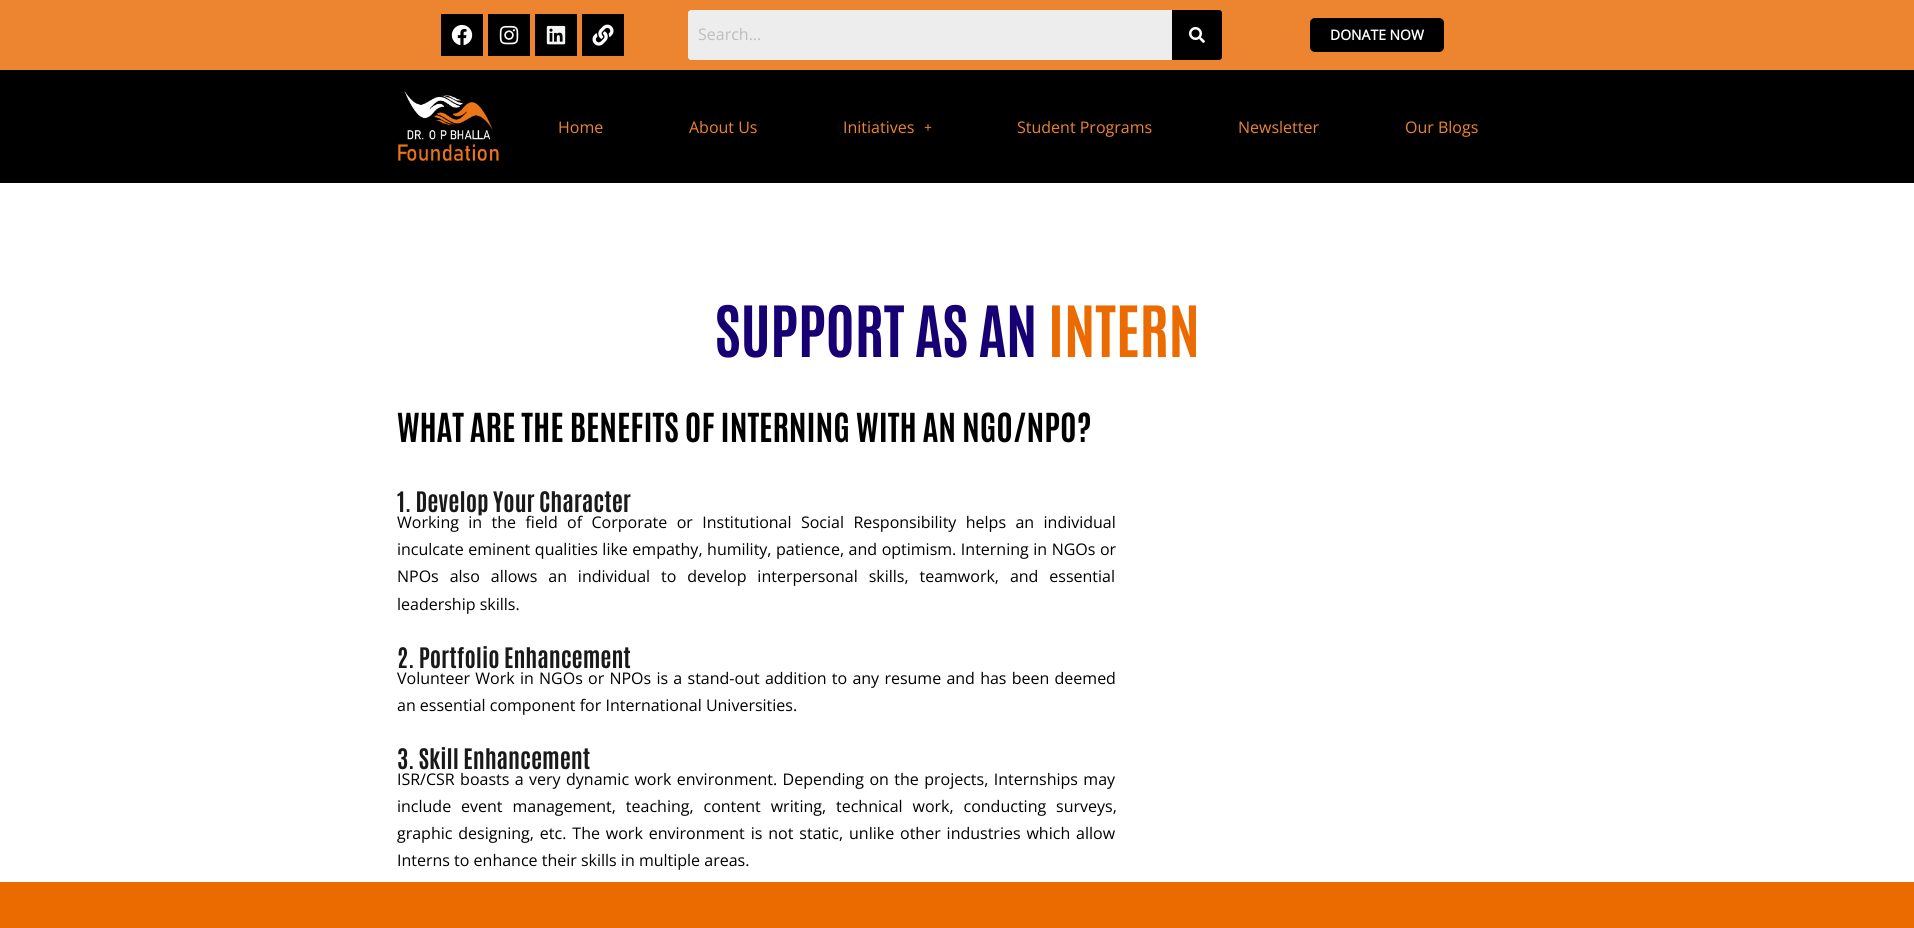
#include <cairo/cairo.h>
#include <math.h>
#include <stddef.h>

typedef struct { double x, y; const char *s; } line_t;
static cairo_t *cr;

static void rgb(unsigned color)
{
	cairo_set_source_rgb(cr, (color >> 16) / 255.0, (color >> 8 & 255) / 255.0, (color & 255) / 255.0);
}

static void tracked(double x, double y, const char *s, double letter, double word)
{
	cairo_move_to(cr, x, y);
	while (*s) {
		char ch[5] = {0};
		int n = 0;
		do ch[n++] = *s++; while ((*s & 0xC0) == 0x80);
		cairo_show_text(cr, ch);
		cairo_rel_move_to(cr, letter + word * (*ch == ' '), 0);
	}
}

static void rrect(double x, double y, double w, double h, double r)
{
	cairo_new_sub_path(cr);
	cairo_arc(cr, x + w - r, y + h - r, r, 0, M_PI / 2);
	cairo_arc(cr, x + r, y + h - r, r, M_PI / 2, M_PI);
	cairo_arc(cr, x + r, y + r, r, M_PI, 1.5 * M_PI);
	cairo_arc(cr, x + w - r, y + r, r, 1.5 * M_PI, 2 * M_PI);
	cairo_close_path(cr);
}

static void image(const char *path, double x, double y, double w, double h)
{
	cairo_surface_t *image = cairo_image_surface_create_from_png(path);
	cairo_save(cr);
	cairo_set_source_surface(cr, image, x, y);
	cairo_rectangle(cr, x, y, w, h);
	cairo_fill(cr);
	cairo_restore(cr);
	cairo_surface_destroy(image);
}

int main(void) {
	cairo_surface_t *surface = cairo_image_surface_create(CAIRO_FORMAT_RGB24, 1914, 928);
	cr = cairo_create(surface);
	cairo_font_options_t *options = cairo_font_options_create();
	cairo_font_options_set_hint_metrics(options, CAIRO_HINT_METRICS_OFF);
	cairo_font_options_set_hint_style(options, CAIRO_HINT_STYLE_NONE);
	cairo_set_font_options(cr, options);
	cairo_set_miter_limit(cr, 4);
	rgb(0xffffff);
	cairo_paint(cr);
	rgb(0xec8430);
	cairo_rectangle(cr, 0, 0, 1914, 70);
	cairo_fill(cr);
	rgb(0x000000);
	cairo_rectangle(cr, 441, 14, 42, 42);
	cairo_fill(cr);
	image("img/1.png", 451, 25, 22, 21);
	cairo_rectangle(cr, 488, 14, 42, 42);
	cairo_fill(cr);
	image("img/2.png", 499, 25, 20, 20);
	cairo_rectangle(cr, 535, 14, 42, 42);
	cairo_fill(cr);
	image("img/3.png", 546, 25, 20, 20);
	cairo_rectangle(cr, 582, 14, 42, 42);
	cairo_fill(cr);
	image("img/4.png", 592, 24, 22, 22);
	rgb(0xededed);
	cairo_new_path(cr);
	cairo_move_to(cr, 691, 10);
	cairo_line_to(cr, 1172, 10);
	cairo_line_to(cr, 1172, 60);
	cairo_line_to(cr, 691, 60);
	cairo_curve_to(cr, 689.5, 60, 688, 58.5, 688, 57);
	cairo_line_to(cr, 688, 13);
	cairo_curve_to(cr, 688, 11.5, 689.5, 10, 691, 10);
	cairo_close_path(cr);
	cairo_fill(cr);
	rgb(0x000000);
	cairo_new_path(cr);
	cairo_move_to(cr, 1172, 10);
	cairo_line_to(cr, 1219, 10);
	cairo_curve_to(cr, 1220.5, 10, 1222, 11.5, 1222, 13);
	cairo_line_to(cr, 1222, 57);
	cairo_curve_to(cr, 1222, 58.5, 1220.5, 60, 1219, 60);
	cairo_line_to(cr, 1172, 60);
	cairo_close_path(cr);
	cairo_fill(cr);
	image("img/5.png", 1189, 27, 16, 16);
	rrect(1310, 18, 134, 34, 5);
	cairo_fill(cr);
	cairo_rectangle(cr, 0, 70, 1914, 113);
	cairo_fill(cr);
	image("img/6.png", 398, 90, 101, 71);
	rgb(0xec6b00);
	cairo_rectangle(cr, 0, 882, 1914, 46);
	cairo_fill(cr);
	cairo_select_font_face(cr, "Open Sans", CAIRO_FONT_SLANT_NORMAL, CAIRO_FONT_WEIGHT_NORMAL);
	cairo_set_font_size(cr, 16);
	rgb(0xbdbdbd);
	cairo_move_to(cr, 698, 40);
	cairo_show_text(cr, "Search...");
	cairo_select_font_face(cr, "Open Sans", CAIRO_FONT_SLANT_NORMAL, CAIRO_FONT_WEIGHT_BOLD);
	cairo_set_font_size(cr, 14);
	rgb(0xffffff);
	cairo_move_to(cr, 1330, 40);
	cairo_show_text(cr, "DONATE NOW");
	cairo_select_font_face(cr, "Open Sans", CAIRO_FONT_SLANT_NORMAL, CAIRO_FONT_WEIGHT_NORMAL);
	cairo_set_font_size(cr, 16);
	rgb(0xec8430);
	{
		static const line_t items[] = {
			{558, 133, "Home"},
			{689, 133, "About Us"},
			{843, 133, "Initiatives"},
		};
		for (size_t i = 0; i < sizeof items / sizeof *items; i++) {
			cairo_move_to(cr, items[i].x, items[i].y);
			cairo_show_text(cr, items[i].s);
		}
	}
	cairo_select_font_face(cr, "Liberation Serif", CAIRO_FONT_SLANT_NORMAL, CAIRO_FONT_WEIGHT_BOLD);
	cairo_set_font_size(cr, 14);
	cairo_move_to(cr, 924, 132);
	cairo_show_text(cr, "+");
	cairo_select_font_face(cr, "Open Sans", CAIRO_FONT_SLANT_NORMAL, CAIRO_FONT_WEIGHT_NORMAL);
	cairo_set_font_size(cr, 16);
	{
		static const line_t items[] = {
			{1017, 133, "Student Programs"},
			{1238, 133, "Newsletter"},
			{1405, 133, "Our Blogs"},
		};
		for (size_t i = 0; i < sizeof items / sizeof *items; i++) {
			cairo_move_to(cr, items[i].x, items[i].y);
			cairo_show_text(cr, items[i].s);
		}
	}
	cairo_select_font_face(cr, "Antonio", CAIRO_FONT_SLANT_NORMAL, CAIRO_FONT_WEIGHT_BOLD);
	cairo_set_font_size(cr, 60);
	rgb(0x170074);
	cairo_move_to(cr, 715, 357);
	cairo_show_text(cr, "SUPPORT AS AN");
	rgb(0xec6b00);
	cairo_move_to(cr, 1048, 357);
	cairo_show_text(cr, "INTERN");
	cairo_set_font_size(cr, 34);
	rgb(0x000000);
	cairo_move_to(cr, 397, 442);
	cairo_show_text(cr, "WHAT ARE THE BENEFITS OF INTERNING WITH AN NGO/NPO?");
	cairo_set_font_size(cr, 24);
	rgb(0x191919);
	cairo_move_to(cr, 397, 512);
	cairo_show_text(cr, "1. Develop Your Character");
	cairo_select_font_face(cr, "Open Sans", CAIRO_FONT_SLANT_NORMAL, CAIRO_FONT_WEIGHT_NORMAL);
	cairo_set_font_size(cr, 16);
	rgb(0x000000);
	tracked(397, 528, "Working in the field of Corporate or Institutional Social Responsibility helps an individual", 0, 5.25);
	tracked(397, 555, "inculcate eminent qualities like empathy, humility, patience, and optimism. Interning in NGOs or", 0, 0.4);
	tracked(397, 582, "NPOs also allows an individual to develop interpersonal skills, teamwork, and essential", 0, 6.75);
	cairo_move_to(cr, 397, 610);
	cairo_show_text(cr, "leadership skills.");
	cairo_select_font_face(cr, "Antonio", CAIRO_FONT_SLANT_NORMAL, CAIRO_FONT_WEIGHT_BOLD);
	cairo_set_font_size(cr, 24);
	rgb(0x191919);
	cairo_move_to(cr, 397, 668);
	cairo_show_text(cr, "2. Portfolio Enhancement");
	cairo_select_font_face(cr, "Open Sans", CAIRO_FONT_SLANT_NORMAL, CAIRO_FONT_WEIGHT_NORMAL);
	cairo_set_font_size(cr, 16);
	rgb(0x000000);
	tracked(397, 684, "Volunteer Work in NGOs or NPOs is a stand-out addition to any resume and has been deemed", 0, 1.1);
	cairo_move_to(cr, 397, 711);
	cairo_show_text(cr, "an essential component for International Universities.");
	cairo_select_font_face(cr, "Antonio", CAIRO_FONT_SLANT_NORMAL, CAIRO_FONT_WEIGHT_BOLD);
	cairo_set_font_size(cr, 24);
	rgb(0x191919);
	cairo_move_to(cr, 397, 769);
	cairo_show_text(cr, "3. Skill Enhancement");
	cairo_select_font_face(cr, "Open Sans", CAIRO_FONT_SLANT_NORMAL, CAIRO_FONT_WEIGHT_NORMAL);
	cairo_set_font_size(cr, 16);
	rgb(0x000000);
	tracked(397, 785, "ISR/CSR boasts a very dynamic work environment. Depending on the projects, Internships may", 0, 1.25);
	tracked(397, 812, "include event management, teaching, content writing, technical work, conducting surveys,", 0, 5.75);
	tracked(397, 839, "graphic designing, etc. The work environment is not static, unlike other industries which allow", 0, 1.75);
	cairo_move_to(cr, 397, 866);
	cairo_show_text(cr, "Interns to enhance their skills in multiple areas.");
	cairo_surface_write_to_png(surface, "page.png");
	cairo_font_options_destroy(options);
	cairo_destroy(cr);
	cairo_surface_destroy(surface);
	return 0;
}
